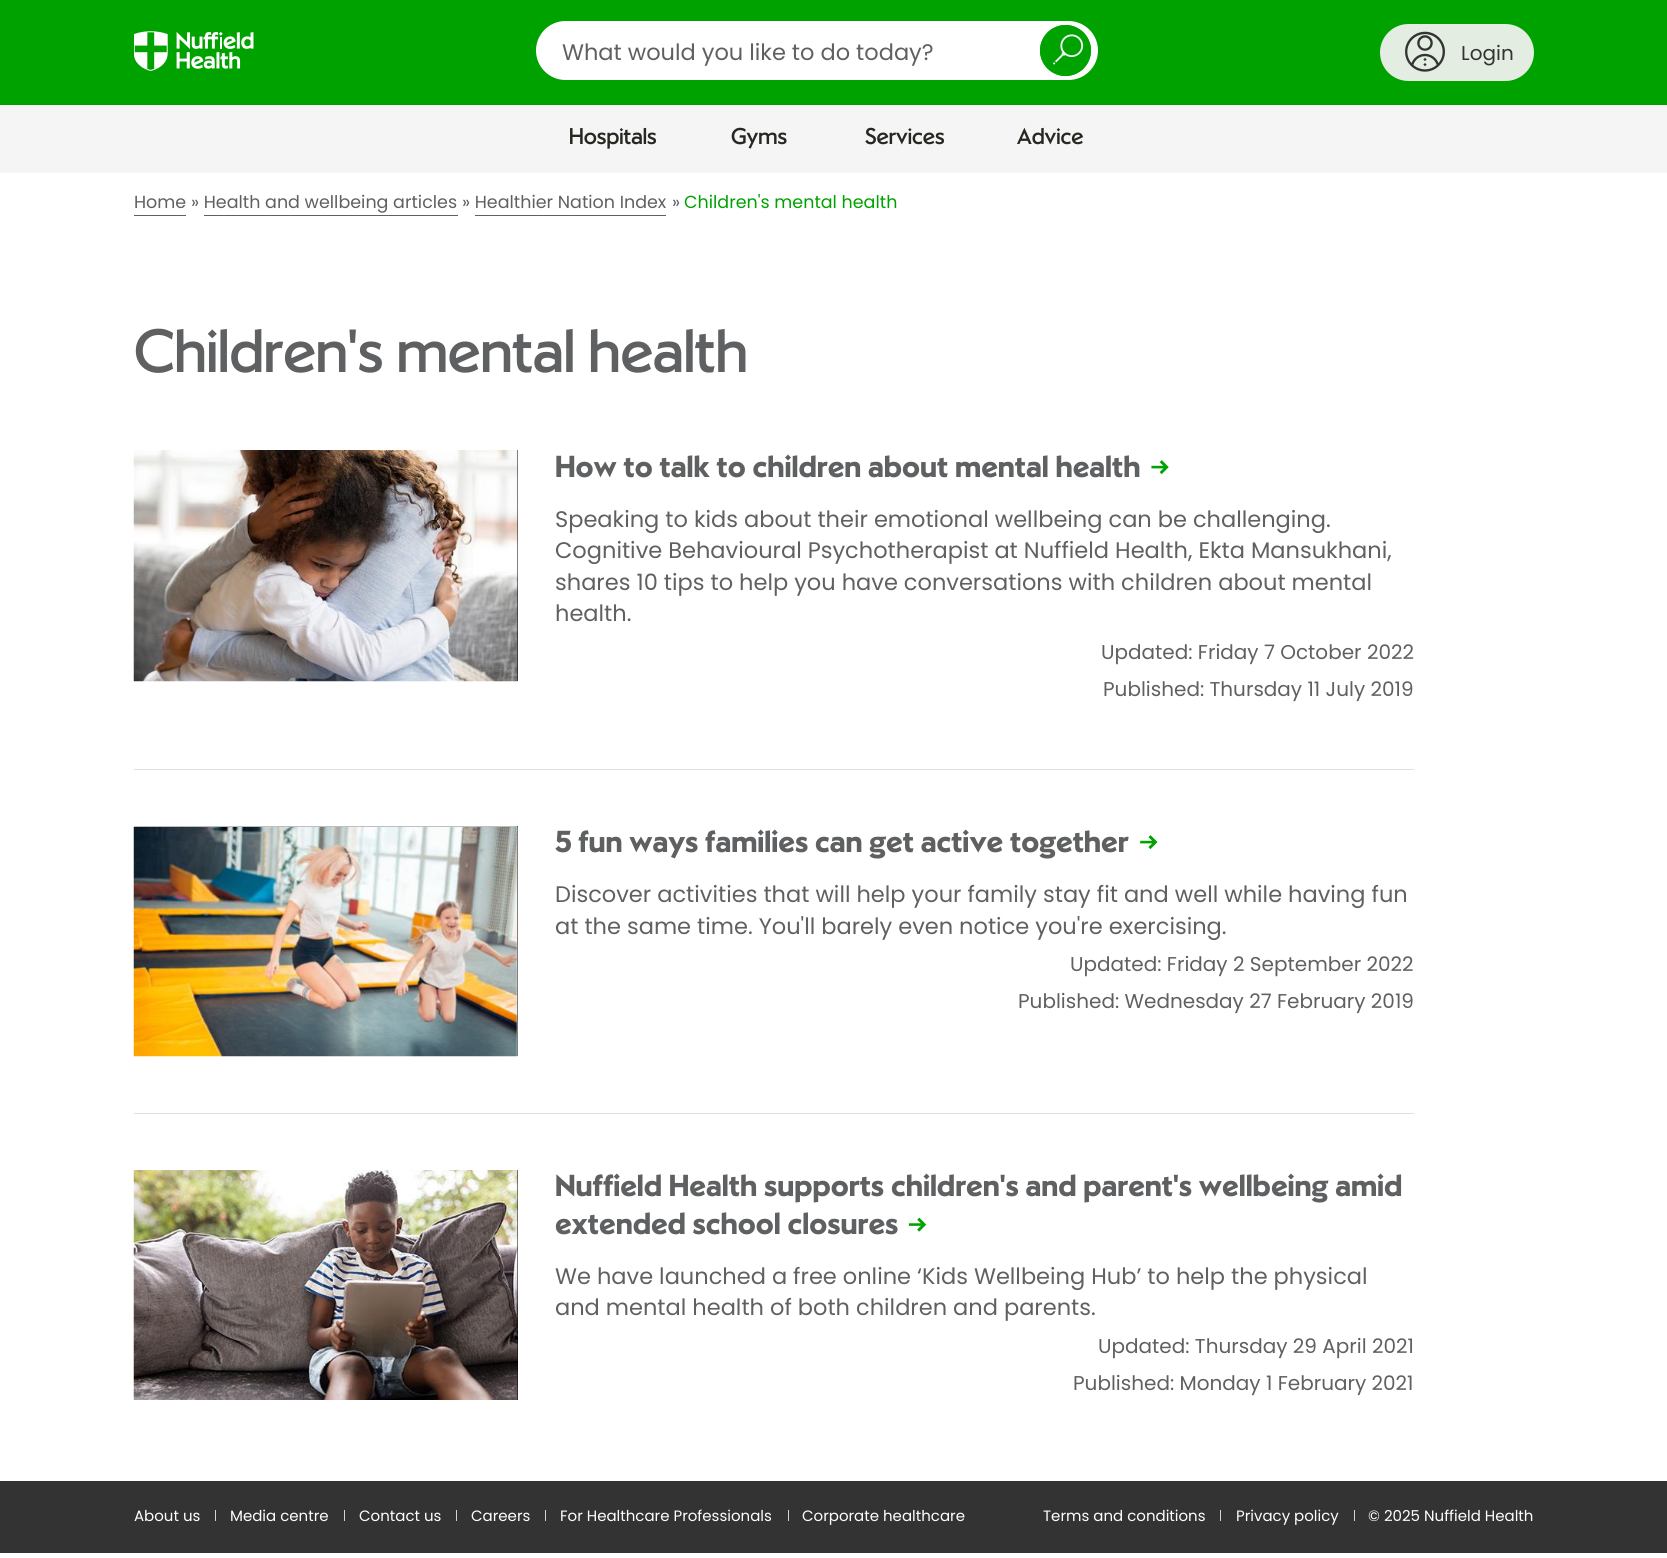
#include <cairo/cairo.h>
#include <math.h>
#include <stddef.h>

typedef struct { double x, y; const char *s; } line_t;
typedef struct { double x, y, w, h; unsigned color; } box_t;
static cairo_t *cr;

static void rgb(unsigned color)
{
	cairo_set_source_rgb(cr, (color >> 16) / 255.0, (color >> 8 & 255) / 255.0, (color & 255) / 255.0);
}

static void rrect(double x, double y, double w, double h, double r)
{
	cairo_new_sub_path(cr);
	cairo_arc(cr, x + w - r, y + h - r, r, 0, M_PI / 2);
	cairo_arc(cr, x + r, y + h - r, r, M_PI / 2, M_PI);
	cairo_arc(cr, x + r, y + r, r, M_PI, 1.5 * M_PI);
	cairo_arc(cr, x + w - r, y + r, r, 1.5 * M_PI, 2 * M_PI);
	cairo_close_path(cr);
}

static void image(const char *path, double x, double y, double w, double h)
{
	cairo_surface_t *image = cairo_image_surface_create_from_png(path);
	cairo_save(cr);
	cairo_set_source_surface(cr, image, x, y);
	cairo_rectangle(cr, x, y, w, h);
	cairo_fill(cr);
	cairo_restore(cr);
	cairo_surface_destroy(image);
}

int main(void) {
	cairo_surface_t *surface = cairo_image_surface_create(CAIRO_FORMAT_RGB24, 1667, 1558);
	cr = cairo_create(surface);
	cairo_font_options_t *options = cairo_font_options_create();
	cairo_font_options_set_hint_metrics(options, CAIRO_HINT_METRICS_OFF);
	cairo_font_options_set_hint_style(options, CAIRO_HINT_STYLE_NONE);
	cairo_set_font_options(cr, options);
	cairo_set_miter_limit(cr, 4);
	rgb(0xffffff);
	cairo_paint(cr);
	rgb(0x00a200);
	cairo_rectangle(cr, 0, 0, 1667, 105);
	cairo_fill(cr);
	image("img/1.png", 134, 31, 120, 40);
	rgb(0xffffff);
	rrect(536, 21, 562, 59, 29.5);
	cairo_fill(cr);
	rgb(0x00a200);
	cairo_arc(cr, 1065.5, 50.5, 25.5, 0, 2 * M_PI);
	cairo_fill(cr);
	image("img/2.png", 1053, 34, 31, 31);
	cairo_arc(cr, 1065.5, 50.5, 24, 0, 2 * M_PI);
	cairo_set_line_width(cr, 3);
	cairo_stroke(cr);
	rgb(0xe3ede2);
	rrect(1380, 24, 154, 57, 28.5);
	cairo_fill(cr);
	image("img/3.png", 1405, 31, 40, 41);
	{
		static const box_t items[] = {
			{0, 105, 1667, 68, 0xf5f5f5},
			{134, 215, 52, 1, 0x5f6062},
			{204, 215, 254, 1, 0x5f6062},
			{475, 215, 191, 1, 0x5f6062},
			{517, 450, 1, 231, 0x000000},
		};
		for (size_t i = 0; i < sizeof items / sizeof *items; i++) {
			rgb(items[i].color);
			cairo_rectangle(cr, items[i].x, items[i].y, items[i].w, items[i].h);
			cairo_fill(cr);
		}
	}
	image("img/4.png", 133, 450, 385, 232);
	image("img/5.png", 1151, 460, 18, 15);
	rgb(0xdfdfdf);
	cairo_rectangle(cr, 134, 769, 1280, 1);
	cairo_fill(cr);
	rgb(0x000000);
	cairo_rectangle(cr, 134, 826, 384, 230);
	cairo_fill(cr);
	image("img/6.png", 133, 826, 385, 231);
	image("img/7.png", 1140, 835, 18, 15);
	rgb(0xdfdfdf);
	cairo_rectangle(cr, 134, 1113, 1280, 1);
	cairo_fill(cr);
	rgb(0x000000);
	cairo_rectangle(cr, 517, 1170, 1, 230);
	cairo_fill(cr);
	image("img/8.png", 133, 1170, 385, 230);
	image("img/9.png", 908, 1217, 19, 15);
	{
		static const box_t items[] = {
			{0, 1481, 1667, 72, 0x333333},
			{215, 1510, 1, 11, 0xd4d4d4},
			{344, 1510, 1, 11, 0xd4d4d4},
			{456, 1510, 1, 11, 0xd4d4d4},
			{545, 1510, 1, 11, 0xd4d4d4},
			{788, 1510, 1, 11, 0xd4d4d4},
			{1220, 1510, 1, 11, 0xd4d4d4},
			{1354, 1510, 1, 11, 0xd4d4d4},
		};
		for (size_t i = 0; i < sizeof items / sizeof *items; i++) {
			rgb(items[i].color);
			cairo_rectangle(cr, items[i].x, items[i].y, items[i].w, items[i].h);
			cairo_fill(cr);
		}
	}
	cairo_select_font_face(cr, "Poppins", CAIRO_FONT_SLANT_NORMAL, CAIRO_FONT_WEIGHT_NORMAL);
	cairo_set_font_size(cr, 22.5);
	rgb(0x5f6062);
	cairo_move_to(cr, 562, 60);
	cairo_show_text(cr, "What would you like to do today?");
	cairo_set_font_size(cr, 20);
	rgb(0x333333);
	cairo_move_to(cr, 1461, 60);
	cairo_show_text(cr, "Login");
	cairo_select_font_face(cr, "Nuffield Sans", CAIRO_FONT_SLANT_NORMAL, CAIRO_FONT_WEIGHT_NORMAL);
	cairo_set_font_size(cr, 22.5);
	rgb(0x282823);
	{
		static const line_t items[] = {
			{569, 144, "Hospitals"},
			{731, 144, "Gyms"},
			{865, 144, "Services"},
			{1017, 144, "Advice"},
		};
		for (size_t i = 0; i < sizeof items / sizeof *items; i++) {
			cairo_move_to(cr, items[i].x, items[i].y);
			cairo_show_text(cr, items[i].s);
		}
	}
	cairo_select_font_face(cr, "Poppins", CAIRO_FONT_SLANT_NORMAL, CAIRO_FONT_WEIGHT_NORMAL);
	cairo_set_font_size(cr, 17.5);
	rgb(0x5f6062);
	{
		static const line_t items[] = {
			{134, 208, "Home"},
			{191, 208, "» Health and wellbeing articles"},
			{462, 208, "» Healthier Nation Index"},
			{672, 208, "»"},
		};
		for (size_t i = 0; i < sizeof items / sizeof *items; i++) {
			cairo_move_to(cr, items[i].x, items[i].y);
			cairo_show_text(cr, items[i].s);
		}
	}
	rgb(0x00a200);
	cairo_move_to(cr, 684, 208);
	cairo_show_text(cr, "Children's mental health");
	cairo_select_font_face(cr, "Nuffield Sans", CAIRO_FONT_SLANT_NORMAL, CAIRO_FONT_WEIGHT_NORMAL);
	cairo_set_font_size(cr, 60);
	rgb(0x5f6062);
	cairo_move_to(cr, 134, 372);
	cairo_show_text(cr, "Children's mental health");
	cairo_select_font_face(cr, "Nuffield Sans", CAIRO_FONT_SLANT_NORMAL, CAIRO_FONT_WEIGHT_BOLD);
	cairo_set_font_size(cr, 30);
	cairo_move_to(cr, 555, 477);
	cairo_show_text(cr, "How to talk to children about mental health");
	cairo_select_font_face(cr, "Poppins", CAIRO_FONT_SLANT_NORMAL, CAIRO_FONT_WEIGHT_NORMAL);
	cairo_set_font_size(cr, 22.5);
	{
		static const line_t items[] = {
			{555, 527, "Speaking to kids about their emotional wellbeing can be challenging."},
			{555, 558, "Cognitive Behavioural Psychotherapist at Nuffield Health, Ekta Mansukhani,"},
			{555, 590, "shares 10 tips to help you have conversations with children about mental"},
			{555, 621, "health."},
		};
		for (size_t i = 0; i < sizeof items / sizeof *items; i++) {
			cairo_move_to(cr, items[i].x, items[i].y);
			cairo_show_text(cr, items[i].s);
		}
	}
	cairo_set_font_size(cr, 20);
	cairo_move_to(cr, 1101, 659);
	cairo_show_text(cr, "Updated: Friday 7 October 2022");
	cairo_move_to(cr, 1103, 696);
	cairo_show_text(cr, "Published: Thursday 11 July 2019");
	cairo_select_font_face(cr, "Nuffield Sans", CAIRO_FONT_SLANT_NORMAL, CAIRO_FONT_WEIGHT_BOLD);
	cairo_set_font_size(cr, 30);
	cairo_move_to(cr, 555, 852);
	cairo_show_text(cr, "5 fun ways families can get active together");
	cairo_select_font_face(cr, "Poppins", CAIRO_FONT_SLANT_NORMAL, CAIRO_FONT_WEIGHT_NORMAL);
	cairo_set_font_size(cr, 22.5);
	cairo_move_to(cr, 555, 902);
	cairo_show_text(cr, "Discover activities that will help your family stay fit and well while having fun");
	cairo_move_to(cr, 555, 934);
	cairo_show_text(cr, "at the same time. You'll barely even notice you're exercising.");
	cairo_set_font_size(cr, 20);
	cairo_move_to(cr, 1070, 971);
	cairo_show_text(cr, "Updated: Friday 2 September 2022");
	cairo_move_to(cr, 1018, 1008);
	cairo_show_text(cr, "Published: Wednesday 27 February 2019");
	cairo_select_font_face(cr, "Nuffield Sans", CAIRO_FONT_SLANT_NORMAL, CAIRO_FONT_WEIGHT_BOLD);
	cairo_set_font_size(cr, 30);
	cairo_move_to(cr, 555, 1196);
	cairo_show_text(cr, "Nuffield Health supports children's and parent's wellbeing amid");
	cairo_move_to(cr, 555, 1234);
	cairo_show_text(cr, "extended school closures");
	cairo_select_font_face(cr, "Poppins", CAIRO_FONT_SLANT_NORMAL, CAIRO_FONT_WEIGHT_NORMAL);
	cairo_set_font_size(cr, 22.5);
	cairo_move_to(cr, 555, 1284);
	cairo_show_text(cr, "We have launched a free online ‘Kids Wellbeing Hub’ to help the physical");
	cairo_move_to(cr, 555, 1315);
	cairo_show_text(cr, "and mental health of both children and parents.");
	cairo_set_font_size(cr, 20);
	cairo_move_to(cr, 1098, 1353);
	cairo_show_text(cr, "Updated: Thursday 29 April 2021");
	cairo_move_to(cr, 1073, 1390);
	cairo_show_text(cr, "Published: Monday 1 February 2021");
	cairo_set_font_size(cr, 15);
	rgb(0xffffff);
	{
		static const line_t items[] = {
			{134, 1521, "About us"},
			{230, 1521, "Media centre"},
			{359, 1521, "Contact us"},
			{471, 1521, "Careers"},
			{560, 1521, "For Healthcare Professionals"},
			{802, 1521, "Corporate healthcare"},
			{1043, 1521, "Terms and conditions"},
			{1236, 1521, "Privacy policy"},
			{1368, 1521, "© 2025 Nuffield Health"},
		};
		for (size_t i = 0; i < sizeof items / sizeof *items; i++) {
			cairo_move_to(cr, items[i].x, items[i].y);
			cairo_show_text(cr, items[i].s);
		}
	}
	cairo_surface_write_to_png(surface, "page.png");
	cairo_font_options_destroy(options);
	cairo_destroy(cr);
	cairo_surface_destroy(surface);
	return 0;
}
